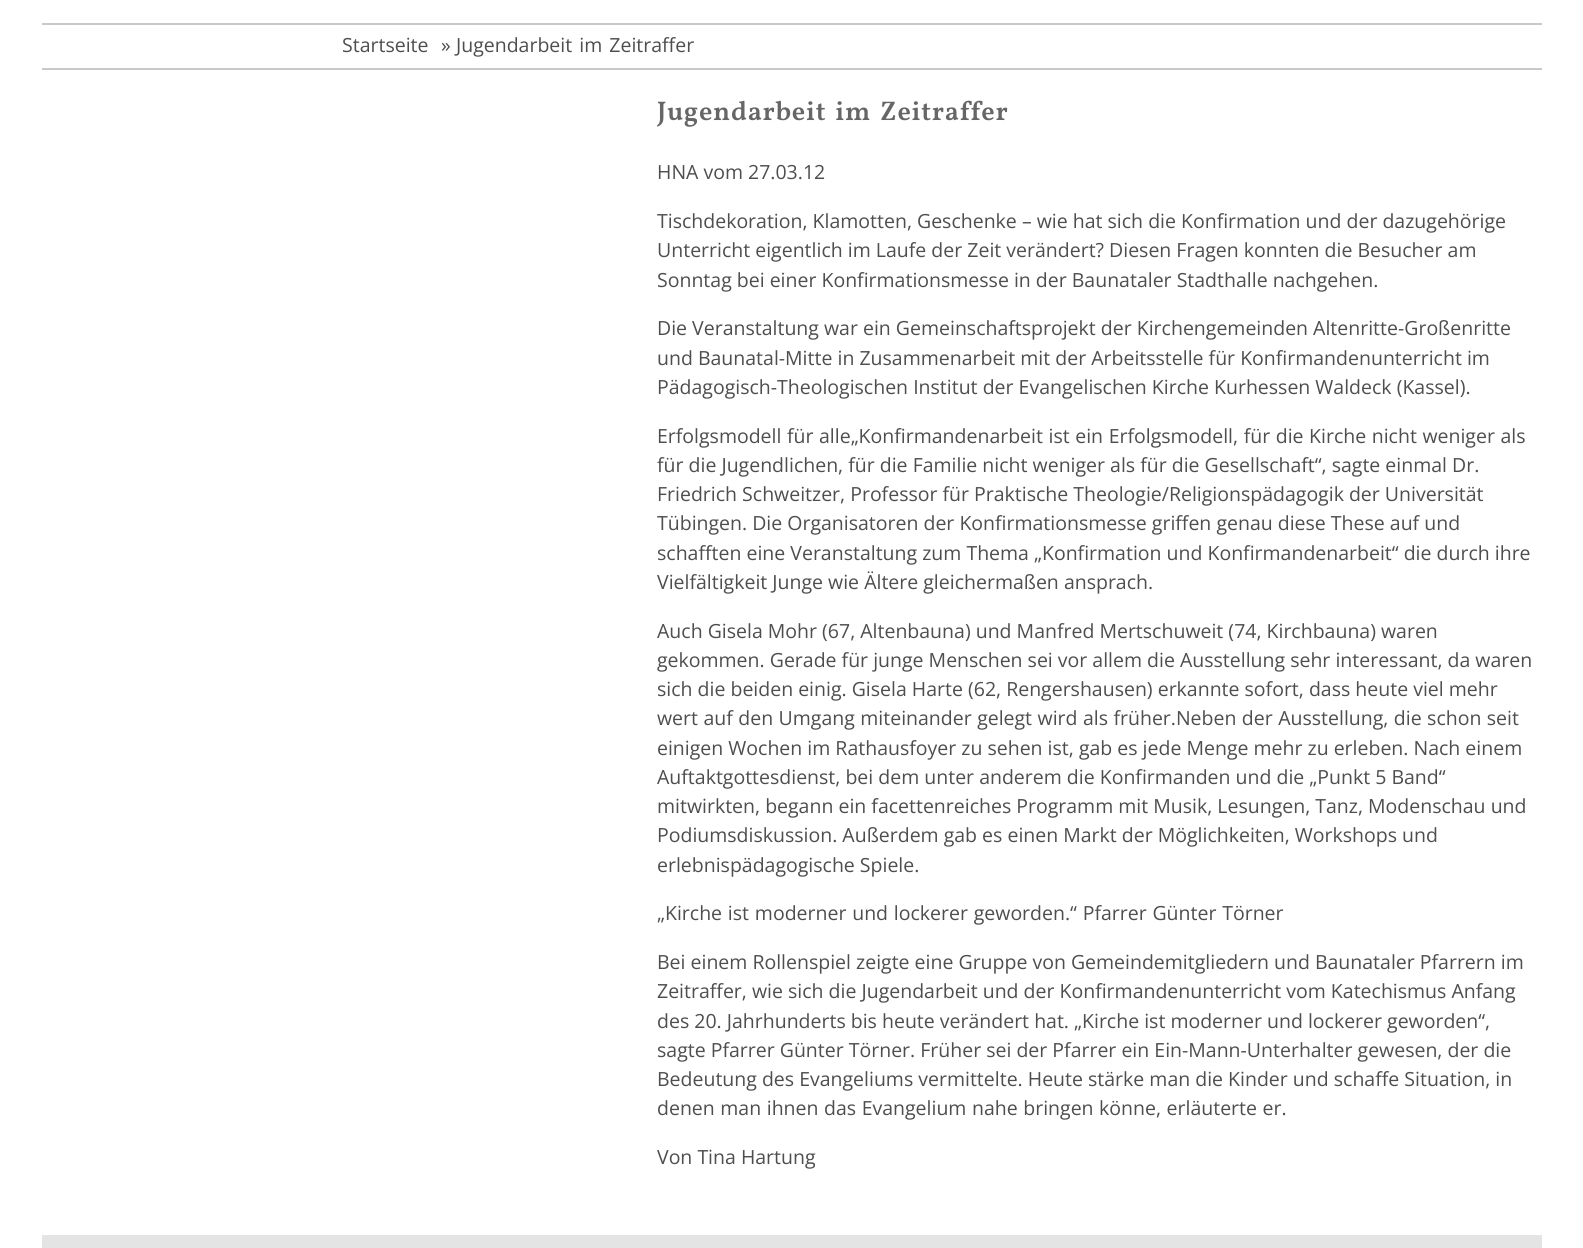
#include <cairo/cairo.h>
#include <math.h>
#include <stddef.h>

typedef struct { double x, y; const char *s; } line_t;
typedef struct { double x, y, w, h; unsigned color; } box_t;
static cairo_t *cr;

static void rgb(unsigned color)
{
	cairo_set_source_rgb(cr, (color >> 16) / 255.0, (color >> 8 & 255) / 255.0, (color & 255) / 255.0);
}

static void tracked(double x, double y, const char *s, double letter, double word)
{
	cairo_move_to(cr, x, y);
	while (*s) {
		char ch[5] = {0};
		int n = 0;
		do ch[n++] = *s++; while ((*s & 0xC0) == 0x80);
		cairo_show_text(cr, ch);
		cairo_rel_move_to(cr, letter + word * (*ch == ' '), 0);
	}
}

int main(void) {
	cairo_surface_t *surface = cairo_image_surface_create(CAIRO_FORMAT_RGB24, 1583, 1248);
	cr = cairo_create(surface);
	cairo_font_options_t *options = cairo_font_options_create();
	cairo_font_options_set_hint_metrics(options, CAIRO_HINT_METRICS_OFF);
	cairo_font_options_set_hint_style(options, CAIRO_HINT_STYLE_NONE);
	cairo_set_font_options(cr, options);
	cairo_set_miter_limit(cr, 4);
	rgb(0xffffff);
	cairo_paint(cr);
	{
		static const box_t items[] = {
			{42, 23, 1500, 2, 0xc8cac7},
			{42, 68, 1500, 2, 0xc8cac7},
			{42, 1235, 1500, 13, 0xe4e4e4},
		};
		for (size_t i = 0; i < sizeof items / sizeof *items; i++) {
			rgb(items[i].color);
			cairo_rectangle(cr, items[i].x, items[i].y, items[i].w, items[i].h);
			cairo_fill(cr);
		}
	}
	cairo_select_font_face(cr, "Open Sans", CAIRO_FONT_SLANT_NORMAL, CAIRO_FONT_WEIGHT_NORMAL);
	cairo_set_font_size(cr, 19.5);
	rgb(0x4e4e4e);
	cairo_move_to(cr, 342, 52);
	cairo_show_text(cr, "Startseite");
	cairo_move_to(cr, 441, 52);
	cairo_show_text(cr, "»");
	tracked(456, 52, "Jugendarbeit im Zeitraffer", 0, 2);
	cairo_select_font_face(cr, "Vollkorn SemiBold", CAIRO_FONT_SLANT_NORMAL, CAIRO_FONT_WEIGHT_NORMAL);
	cairo_set_font_size(cr, 27);
	rgb(0x666666);
	tracked(657, 120, "Jugendarbeit im Zeitraffer", 0.7, 3);
	cairo_select_font_face(cr, "Open Sans", CAIRO_FONT_SLANT_NORMAL, CAIRO_FONT_WEIGHT_NORMAL);
	cairo_set_font_size(cr, 19.5);
	rgb(0x4e4e4e);
	{
		static const line_t items[] = {
			{657, 179, "HNA vom 27.03.12"},
			{657, 228, "Tischdekoration, Klamotten, Geschenke – wie hat sich die Konfirmation und der dazugehörige"},
			{657, 257, "Unterricht eigentlich im Laufe der Zeit verändert? Diesen Fragen konnten die Besucher am"},
			{657, 287, "Sonntag bei einer Konfirmationsmesse in der Baunataler Stadthalle nachgehen."},
			{657, 335, "Die Veranstaltung war ein Gemeinschaftsprojekt der Kirchengemeinden Altenritte-Großenritte"},
			{657, 365, "und Baunatal-Mitte in Zusammenarbeit mit der Arbeitsstelle für Konfirmandenunterricht im"},
			{657, 394, "Pädagogisch-Theologischen Institut der Evangelischen Kirche Kurhessen Waldeck (Kassel)."},
		};
		for (size_t i = 0; i < sizeof items / sizeof *items; i++) {
			cairo_move_to(cr, items[i].x, items[i].y);
			cairo_show_text(cr, items[i].s);
		}
	}
	tracked(657, 443, "Erfolgsmodell für alle„Konfirmandenarbeit ist ein Erfolgsmodell, für die Kirche nicht weniger als", 0, 0.5);
	{
		static const line_t items[] = {
			{657, 472, "für die Jugendlichen, für die Familie nicht weniger als für die Gesellschaft“, sagte einmal Dr."},
			{657, 501, "Friedrich Schweitzer, Professor für Praktische Theologie/Religionspädagogik der Universität"},
			{657, 530, "Tübingen. Die Organisatoren der Konfirmationsmesse griffen genau diese These auf und"},
			{657, 560, "schafften eine Veranstaltung zum Thema „Konfirmation und Konfirmandenarbeit“ die durch ihre"},
			{657, 589, "Vielfältigkeit Junge wie Ältere gleichermaßen ansprach."},
			{657, 638, "Auch Gisela Mohr (67, Altenbauna) und Manfred Mertschuweit (74, Kirchbauna) waren"},
			{657, 667, "gekommen. Gerade für junge Menschen sei vor allem die Ausstellung sehr interessant, da waren"},
			{657, 696, "sich die beiden einig. Gisela Harte (62, Rengershausen) erkannte sofort, dass heute viel mehr"},
		};
		for (size_t i = 0; i < sizeof items / sizeof *items; i++) {
			cairo_move_to(cr, items[i].x, items[i].y);
			cairo_show_text(cr, items[i].s);
		}
	}
	tracked(657, 725, "wert auf den Umgang miteinander gelegt wird als früher.Neben der Ausstellung, die schon seit", 0, 0.4);
	{
		static const line_t items[] = {
			{657, 755, "einigen Wochen im Rathausfoyer zu sehen ist, gab es jede Menge mehr zu erleben. Nach einem"},
			{657, 784, "Auftaktgottesdienst, bei dem unter anderem die Konfirmanden und die „Punkt 5 Band“"},
			{657, 813, "mitwirkten, begann ein facettenreiches Programm mit Musik, Lesungen, Tanz, Modenschau und"},
			{657, 842, "Podiumsdiskussion. Außerdem gab es einen Markt der Möglichkeiten, Workshops und"},
			{657, 872, "erlebnispädagogische Spiele."},
		};
		for (size_t i = 0; i < sizeof items / sizeof *items; i++) {
			cairo_move_to(cr, items[i].x, items[i].y);
			cairo_show_text(cr, items[i].s);
		}
	}
	tracked(657, 920, "„Kirche ist moderner und lockerer geworden.“ Pfarrer Günter Törner", 0, 0.75);
	{
		static const line_t items[] = {
			{657, 969, "Bei einem Rollenspiel zeigte eine Gruppe von Gemeindemitgliedern und Baunataler Pfarrern im"},
			{657, 998, "Zeitraffer, wie sich die Jugendarbeit und der Konfirmandenunterricht vom Katechismus Anfang"},
			{657, 1028, "des 20. Jahrhunderts bis heute verändert hat. „Kirche ist moderner und lockerer geworden“,"},
			{657, 1057, "sagte Pfarrer Günter Törner. Früher sei der Pfarrer ein Ein-Mann-Unterhalter gewesen, der die"},
			{657, 1086, "Bedeutung des Evangeliums vermittelte. Heute stärke man die Kinder und schaffe Situation, in"},
		};
		for (size_t i = 0; i < sizeof items / sizeof *items; i++) {
			cairo_move_to(cr, items[i].x, items[i].y);
			cairo_show_text(cr, items[i].s);
		}
	}
	tracked(657, 1115, "denen man ihnen das Evangelium nahe bringen könne, erläuterte er.", 0, 0.5);
	cairo_move_to(cr, 657, 1164);
	cairo_show_text(cr, "Von Tina Hartung");
	cairo_surface_write_to_png(surface, "page.png");
	cairo_font_options_destroy(options);
	cairo_destroy(cr);
	cairo_surface_destroy(surface);
	return 0;
}
